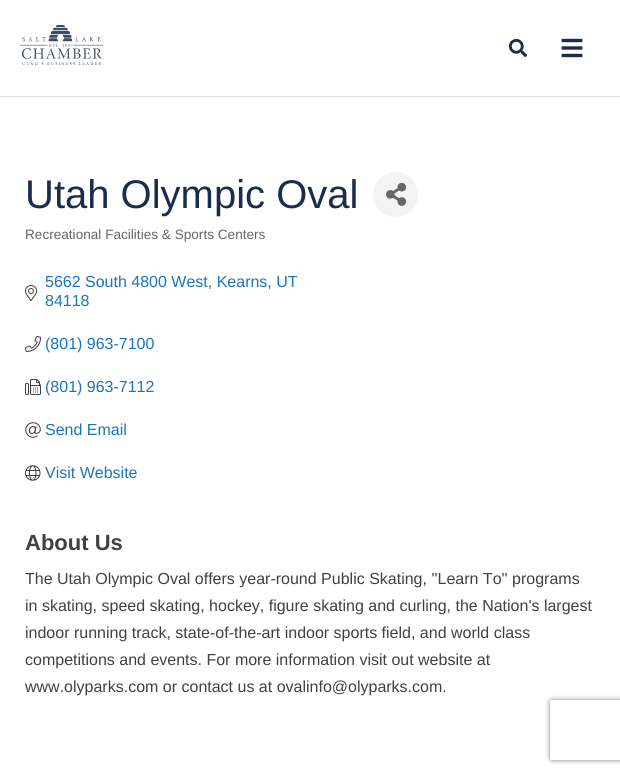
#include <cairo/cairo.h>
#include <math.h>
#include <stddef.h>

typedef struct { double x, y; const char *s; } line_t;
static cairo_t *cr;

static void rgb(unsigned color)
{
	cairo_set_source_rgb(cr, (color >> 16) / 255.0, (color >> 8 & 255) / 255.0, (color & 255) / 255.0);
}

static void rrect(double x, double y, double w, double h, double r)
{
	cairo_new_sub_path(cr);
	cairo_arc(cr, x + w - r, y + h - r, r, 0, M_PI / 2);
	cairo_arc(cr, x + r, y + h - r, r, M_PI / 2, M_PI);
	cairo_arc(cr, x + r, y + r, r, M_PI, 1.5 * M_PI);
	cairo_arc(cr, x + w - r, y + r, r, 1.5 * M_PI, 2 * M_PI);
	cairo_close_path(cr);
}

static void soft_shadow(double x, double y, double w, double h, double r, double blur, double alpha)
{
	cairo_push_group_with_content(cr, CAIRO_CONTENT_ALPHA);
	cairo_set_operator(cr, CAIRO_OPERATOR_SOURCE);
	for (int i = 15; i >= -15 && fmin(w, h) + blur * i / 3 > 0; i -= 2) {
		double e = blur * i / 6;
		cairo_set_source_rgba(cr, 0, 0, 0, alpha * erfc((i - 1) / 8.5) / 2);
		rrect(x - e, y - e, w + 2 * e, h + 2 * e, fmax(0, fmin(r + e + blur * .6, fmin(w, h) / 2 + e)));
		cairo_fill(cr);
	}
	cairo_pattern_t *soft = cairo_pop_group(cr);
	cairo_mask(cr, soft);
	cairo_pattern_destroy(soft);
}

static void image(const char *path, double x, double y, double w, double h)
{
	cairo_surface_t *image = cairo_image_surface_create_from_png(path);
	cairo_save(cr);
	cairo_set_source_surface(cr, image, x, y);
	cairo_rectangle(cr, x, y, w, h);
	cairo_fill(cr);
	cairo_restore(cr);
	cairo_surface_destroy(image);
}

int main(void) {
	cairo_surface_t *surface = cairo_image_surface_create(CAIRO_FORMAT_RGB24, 620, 774);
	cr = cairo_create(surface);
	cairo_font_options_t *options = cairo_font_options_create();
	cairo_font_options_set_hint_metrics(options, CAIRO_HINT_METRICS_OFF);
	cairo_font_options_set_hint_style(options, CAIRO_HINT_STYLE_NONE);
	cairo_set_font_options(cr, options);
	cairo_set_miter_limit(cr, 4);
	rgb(0xffffff);
	cairo_paint(cr);
	rgb(0xdedfe0);
	cairo_rectangle(cr, 0, 96, 620, 1);
	cairo_fill(cr);
	image("img/1.png", 20, 25, 83, 40);
	image("img/2.png", 509, 39, 18, 18);
	image("img/3.png", 561, 38, 22, 20);
	rgb(0xf3f3f3);
	cairo_arc(cr, 395.5, 194.5, 22.5, 0, 2 * M_PI);
	cairo_fill(cr);
	image("img/4.png", 386, 182, 21, 24);
	image("img/5.png", 25, 285, 12, 16);
	image("img/6.png", 25, 336, 16, 16);
	image("img/7.png", 25, 379, 16, 16);
	image("img/8.png", 25, 422, 16, 16);
	image("img/9.png", 25, 465, 16, 16);
	cairo_save(cr);
	cairo_set_fill_rule(cr, CAIRO_FILL_RULE_EVEN_ODD);
	cairo_new_path(cr);
	cairo_move_to(cr, 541, 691);
	cairo_line_to(cr, 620, 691);
	cairo_line_to(cr, 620, 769);
	cairo_line_to(cr, 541, 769);
	cairo_close_path(cr);
	cairo_move_to(cr, 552, 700);
	cairo_line_to(cr, 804, 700);
	cairo_curve_to(cr, 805, 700, 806, 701, 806, 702);
	cairo_line_to(cr, 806, 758);
	cairo_curve_to(cr, 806, 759, 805, 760, 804, 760);
	cairo_line_to(cr, 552, 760);
	cairo_curve_to(cr, 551, 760, 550, 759, 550, 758);
	cairo_line_to(cr, 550, 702);
	cairo_curve_to(cr, 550, 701, 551, 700, 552, 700);
	cairo_close_path(cr);
	cairo_clip(cr);
	rgb(0x808080);
	soft_shadow(550, 700, 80, 60, 2, 2.5, 1);
	cairo_restore(cr);
	cairo_select_font_face(cr, "Liberation Sans", CAIRO_FONT_SLANT_NORMAL, CAIRO_FONT_WEIGHT_NORMAL);
	cairo_set_font_size(cr, 40);
	rgb(0x1c2c4b);
	cairo_move_to(cr, 25, 208);
	cairo_show_text(cr, "Utah Olympic Oval");
	cairo_set_font_size(cr, 13.6);
	rgb(0x676668);
	cairo_move_to(cr, 25, 239);
	cairo_show_text(cr, "Recreational Facilities & Sports Centers");
	cairo_set_font_size(cr, 16);
	rgb(0x1c75bb);
	{
		static const line_t items[] = {
			{45, 287, "5662 South 4800 West, Kearns, UT"},
			{45, 306, "84118"},
			{45, 349, "(801) 963-7100"},
			{45, 392, "(801) 963-7112"},
			{45, 435, "Send Email"},
			{45, 478, "Visit Website"},
		};
		for (size_t i = 0; i < sizeof items / sizeof *items; i++) {
			cairo_move_to(cr, items[i].x, items[i].y);
			cairo_show_text(cr, items[i].s);
		}
	}
	cairo_select_font_face(cr, "Liberation Sans", CAIRO_FONT_SLANT_NORMAL, CAIRO_FONT_WEIGHT_BOLD);
	cairo_set_font_size(cr, 22);
	rgb(0x414042);
	cairo_move_to(cr, 25, 550);
	cairo_show_text(cr, "About Us");
	cairo_select_font_face(cr, "Liberation Sans", CAIRO_FONT_SLANT_NORMAL, CAIRO_FONT_WEIGHT_NORMAL);
	cairo_set_font_size(cr, 16);
	{
		static const line_t items[] = {
			{25, 584, "The Utah Olympic Oval offers year-round Public Skating, ''Learn To'' programs"},
			{25, 611, "in skating, speed skating, hockey, figure skating and curling, the Nation's largest"},
			{25, 638, "indoor running track, state-of-the-art indoor sports field, and world class"},
			{25, 665, "competitions and events. For more information visit out website at"},
			{25, 692, "www.olyparks.com or contact us at ovalinfo@olyparks.com."},
		};
		for (size_t i = 0; i < sizeof items / sizeof *items; i++) {
			cairo_move_to(cr, items[i].x, items[i].y);
			cairo_show_text(cr, items[i].s);
		}
	}
	cairo_surface_write_to_png(surface, "page.png");
	cairo_font_options_destroy(options);
	cairo_destroy(cr);
	cairo_surface_destroy(surface);
	return 0;
}
